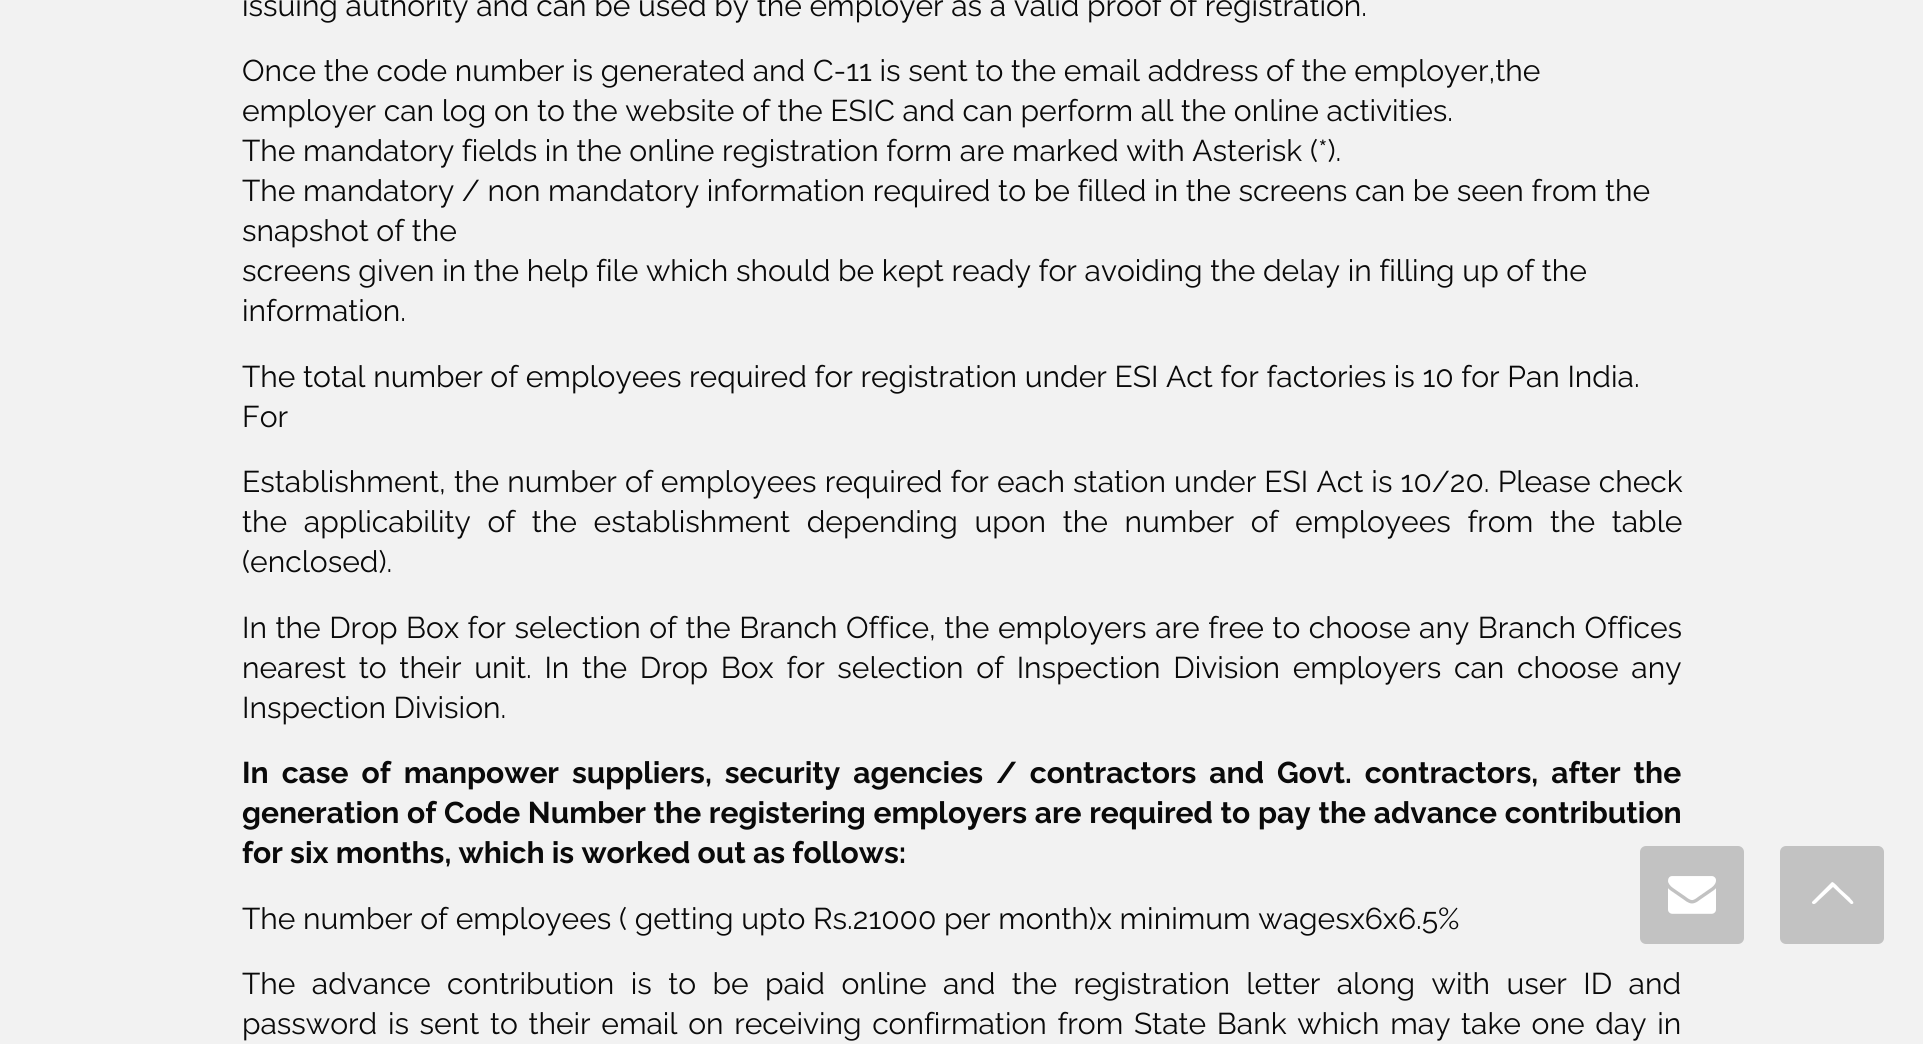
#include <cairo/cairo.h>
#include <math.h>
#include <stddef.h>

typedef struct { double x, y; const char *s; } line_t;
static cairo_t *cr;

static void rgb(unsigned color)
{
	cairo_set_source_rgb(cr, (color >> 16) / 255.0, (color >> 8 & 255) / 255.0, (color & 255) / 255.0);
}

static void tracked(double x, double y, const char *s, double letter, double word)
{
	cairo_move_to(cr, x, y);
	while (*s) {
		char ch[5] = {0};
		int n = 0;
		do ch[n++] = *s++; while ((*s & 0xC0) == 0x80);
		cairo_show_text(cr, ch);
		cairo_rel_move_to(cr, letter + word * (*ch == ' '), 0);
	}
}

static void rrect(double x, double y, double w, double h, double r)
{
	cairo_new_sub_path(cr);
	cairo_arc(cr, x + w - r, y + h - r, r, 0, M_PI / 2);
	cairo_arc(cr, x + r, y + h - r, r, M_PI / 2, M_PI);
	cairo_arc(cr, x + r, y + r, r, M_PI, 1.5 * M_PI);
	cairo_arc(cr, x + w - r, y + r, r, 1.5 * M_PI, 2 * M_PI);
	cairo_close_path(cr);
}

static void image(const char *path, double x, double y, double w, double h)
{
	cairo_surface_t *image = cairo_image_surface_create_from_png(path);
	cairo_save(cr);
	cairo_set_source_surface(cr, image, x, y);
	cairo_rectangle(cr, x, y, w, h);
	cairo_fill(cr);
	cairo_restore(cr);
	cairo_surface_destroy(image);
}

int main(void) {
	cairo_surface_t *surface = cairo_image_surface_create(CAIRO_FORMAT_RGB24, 1923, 1044);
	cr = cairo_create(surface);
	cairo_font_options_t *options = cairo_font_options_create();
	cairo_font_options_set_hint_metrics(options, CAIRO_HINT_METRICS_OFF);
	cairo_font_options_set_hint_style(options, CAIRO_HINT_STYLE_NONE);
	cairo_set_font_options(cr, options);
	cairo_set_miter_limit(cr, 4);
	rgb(0xf2f2f2);
	cairo_paint(cr);
	rgb(0xc2c2c2);
	rrect(1640, 846, 104, 98, 6);
	cairo_fill(cr);
	image("img/1.png", 1668, 876, 48, 38);
	rrect(1780, 846, 104, 98, 6);
	cairo_fill(cr);
	rgb(0xffffff);
	cairo_new_path(cr);
	cairo_move_to(cr, 1851, 904);
	cairo_line_to(cr, 1833, 887);
	cairo_line_to(cr, 1818, 901);
	cairo_curve_to(cr, 1817, 902, 1814, 906, 1812, 903);
	cairo_line_to(cr, 1812, 902);
	cairo_line_to(cr, 1832, 882);
	cairo_curve_to(cr, 1834, 882, 1839, 888, 1840, 889);
	cairo_line_to(cr, 1850, 898);
	cairo_curve_to(cr, 1850, 899, 1856, 903, 1852, 904);
	cairo_close_path(cr);
	cairo_fill(cr);
	cairo_select_font_face(cr, "Raleway", CAIRO_FONT_SLANT_NORMAL, CAIRO_FONT_WEIGHT_NORMAL);
	cairo_set_font_size(cr, 30);
	rgb(0x0a0a0a);
	{
		static const line_t items[] = {
			{242, 16, "issuing authority and can be used by the employer as a valid proof of registration."},
			{242, 81, "Once the code number is generated and C-11 is sent to the email address of the employer,the"},
			{242, 121, "employer can log on to the website of the ESIC and can perform all the online activities."},
			{242, 161, "The mandatory fields in the online registration form are marked with Asterisk (*)."},
			{242, 201, "The mandatory / non mandatory information required to be filled in the screens can be seen from the"},
			{242, 241, "snapshot of the"},
			{242, 281, "screens given in the help file which should be kept ready for avoiding the delay in filling up of the"},
			{242, 321, "information."},
			{242, 387, "The total number of employees required for registration under ESI Act for factories is 10 for Pan India."},
			{242, 427, "For"},
		};
		for (size_t i = 0; i < sizeof items / sizeof *items; i++) {
			cairo_move_to(cr, items[i].x, items[i].y);
			cairo_show_text(cr, items[i].s);
		}
	}
	tracked(242, 492, "Establishment, the number of employees required for each station under ESI Act is 10/20. Please check", 0, 0.5);
	tracked(242, 532, "the applicability of the establishment depending upon the number of employees from the table", 0, 9);
	cairo_move_to(cr, 242, 572);
	cairo_show_text(cr, "(enclosed).");
	tracked(242, 638, "In the Drop Box for selection of the Branch Office, the employers are free to choose any Branch Offices", 0, 0.9);
	tracked(242, 678, "nearest to their unit. In the Drop Box for selection of Inspection Division employers can choose any", 0, 5);
	cairo_move_to(cr, 242, 718);
	cairo_show_text(cr, "Inspection Division.");
	cairo_select_font_face(cr, "Raleway", CAIRO_FONT_SLANT_NORMAL, CAIRO_FONT_WEIGHT_BOLD);
	tracked(242, 783, "In case of manpower suppliers, security agencies / contractors and Govt. contractors, after the", 0, 5.75);
	tracked(242, 823, "generation of Code Number the registering employers are required to pay the advance contribution", 0, 0.5);
	cairo_move_to(cr, 242, 863);
	cairo_show_text(cr, "for six months, which is worked out as follows:");
	cairo_select_font_face(cr, "Raleway", CAIRO_FONT_SLANT_NORMAL, CAIRO_FONT_WEIGHT_NORMAL);
	cairo_move_to(cr, 242, 929);
	cairo_show_text(cr, "The number of employees ( getting upto Rs.21000 per month)x minimum wagesx6x6.5%");
	tracked(242, 994, "The advance contribution is to be paid online and the registration letter along with user ID and", 0, 8.75);
	tracked(242, 1034, "password is sent to their email on receiving confirmation from State Bank which may take one day in", 0, 3);
	cairo_surface_write_to_png(surface, "page.png");
	cairo_font_options_destroy(options);
	cairo_destroy(cr);
	cairo_surface_destroy(surface);
	return 0;
}
